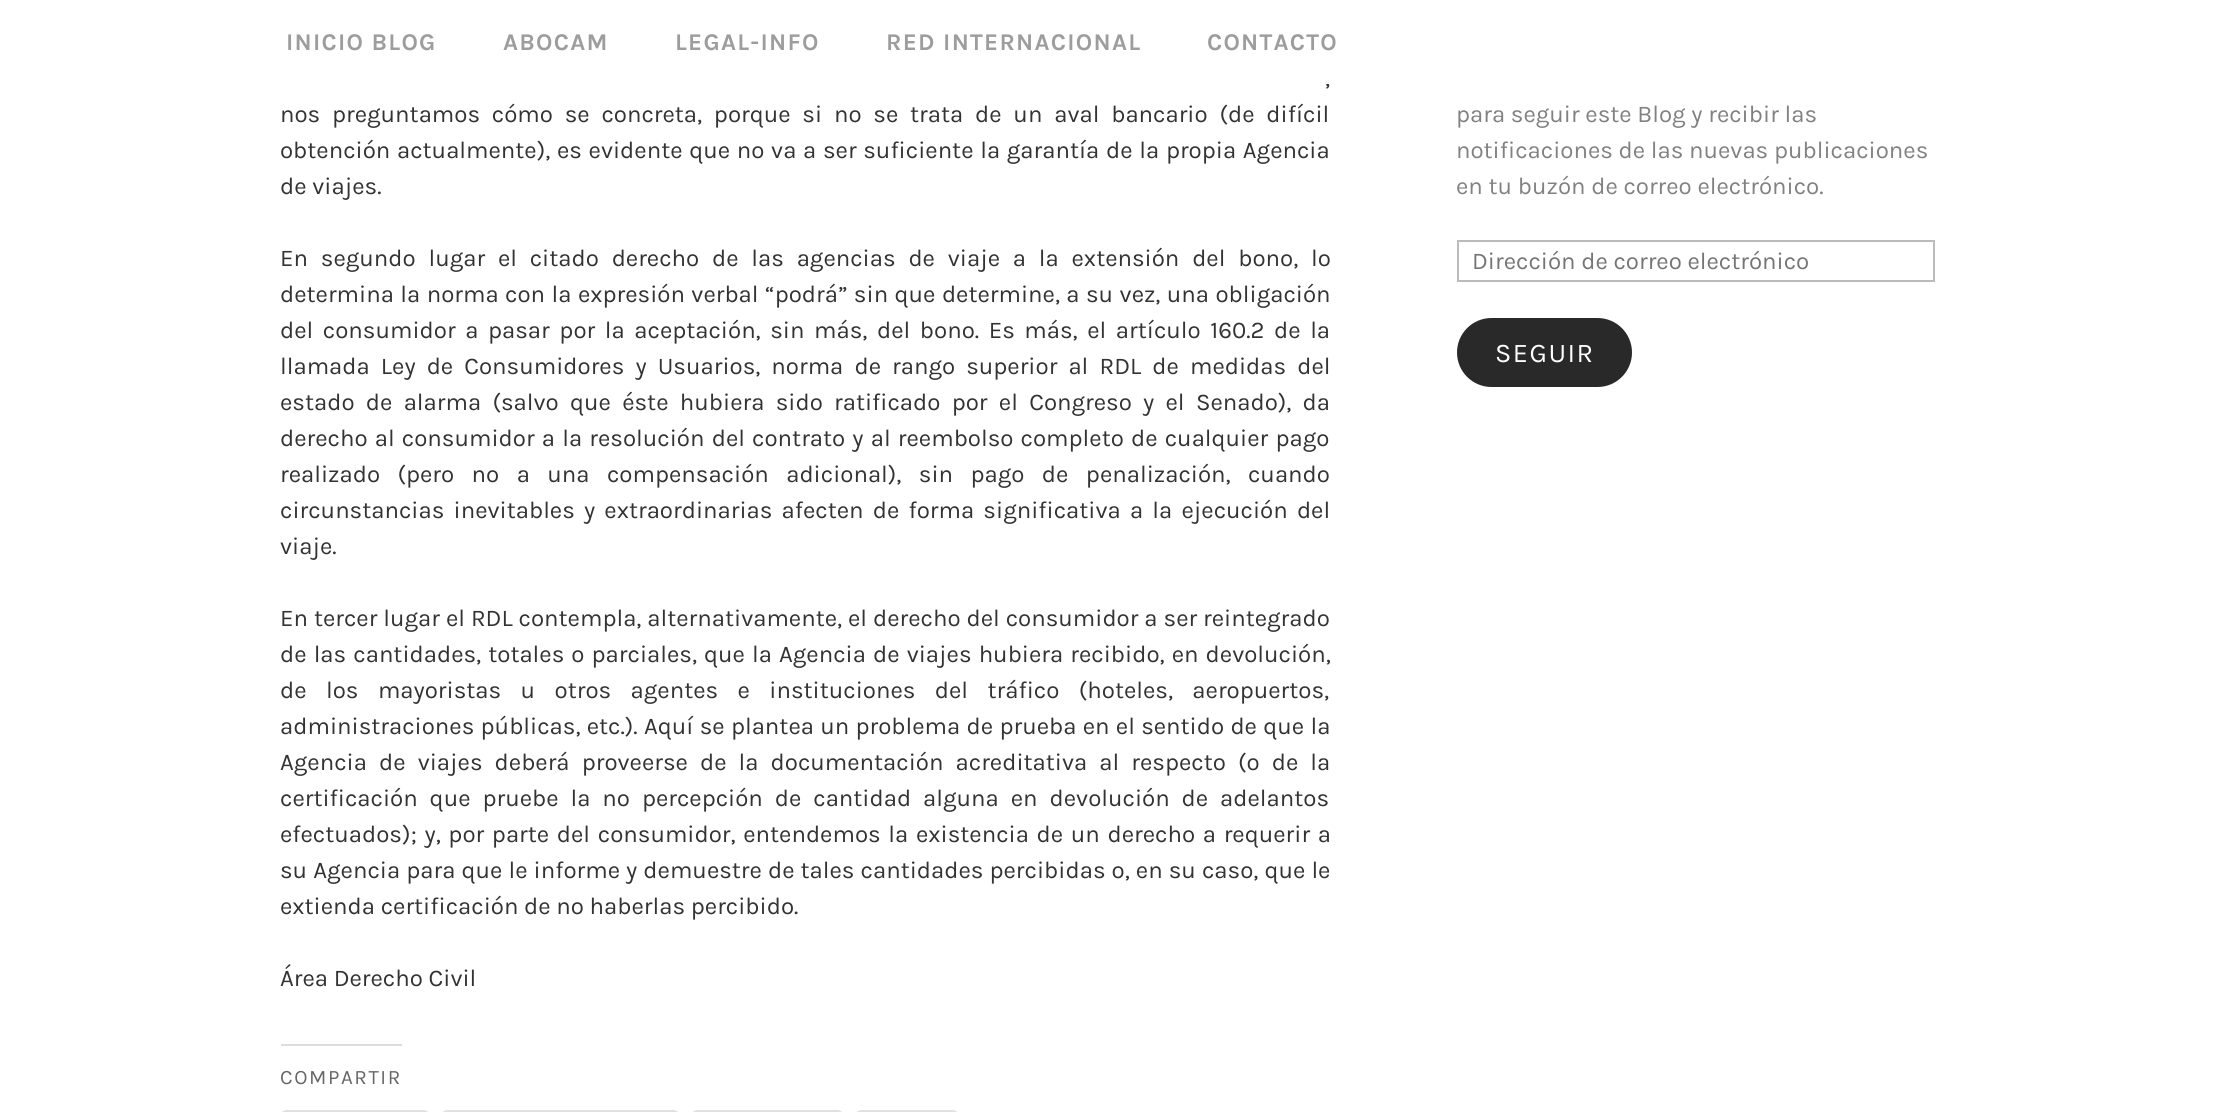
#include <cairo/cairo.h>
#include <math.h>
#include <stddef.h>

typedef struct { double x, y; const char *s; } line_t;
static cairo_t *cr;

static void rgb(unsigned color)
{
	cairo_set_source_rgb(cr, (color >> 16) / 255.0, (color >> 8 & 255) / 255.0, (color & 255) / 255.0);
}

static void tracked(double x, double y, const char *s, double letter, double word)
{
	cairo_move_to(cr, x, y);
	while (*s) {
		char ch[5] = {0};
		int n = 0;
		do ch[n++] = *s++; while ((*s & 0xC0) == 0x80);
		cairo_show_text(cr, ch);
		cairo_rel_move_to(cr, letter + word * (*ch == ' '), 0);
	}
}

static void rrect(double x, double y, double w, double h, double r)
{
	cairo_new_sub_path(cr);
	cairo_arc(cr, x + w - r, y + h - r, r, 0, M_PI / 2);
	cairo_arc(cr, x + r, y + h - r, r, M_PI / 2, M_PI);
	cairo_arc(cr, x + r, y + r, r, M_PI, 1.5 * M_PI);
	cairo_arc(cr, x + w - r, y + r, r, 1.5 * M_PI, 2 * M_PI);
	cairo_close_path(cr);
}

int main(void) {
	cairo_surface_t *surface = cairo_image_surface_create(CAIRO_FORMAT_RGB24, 2239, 1112);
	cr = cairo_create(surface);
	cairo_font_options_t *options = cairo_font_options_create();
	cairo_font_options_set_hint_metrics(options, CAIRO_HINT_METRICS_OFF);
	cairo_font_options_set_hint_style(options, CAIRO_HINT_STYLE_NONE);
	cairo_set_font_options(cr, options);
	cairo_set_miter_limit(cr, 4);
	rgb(0xffffff);
	cairo_paint(cr);
	rgb(0xdcdcde);
	cairo_rectangle(cr, 281, 1044, 121, 2);
	cairo_fill(cr);
	rrect(280, 1111, 150, 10, 7);
	rgb(0xe0e0e0);
	cairo_stroke(cr);
	rrect(441, 1111, 239, 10, 7);
	cairo_stroke(cr);
	rrect(691, 1111, 153, 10, 7);
	cairo_stroke(cr);
	rrect(855, 1111, 104, 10, 7);
	cairo_stroke(cr);
	cairo_rectangle(cr, 1458, 241, 476, 40);
	rgb(0xbbbbbb);
	cairo_stroke(cr);
	rgb(0x29292a);
	rrect(1457, 318, 175, 69, 34.5);
	cairo_fill(cr);
	cairo_select_font_face(cr, "Karla", CAIRO_FONT_SLANT_NORMAL, CAIRO_FONT_WEIGHT_BOLD);
	cairo_set_font_size(cr, 24);
	rgb(0x9d9d9d);
	{
		static const line_t items[] = {
			{286, 50, "INICIO BLOG"},
			{503, 50, "ABOCAM"},
			{675, 50, "LEGAL-INFO"},
			{886, 50, "RED INTERNACIONAL"},
			{1207, 50, "CONTACTO"},
		};
		for (size_t i = 0; i < sizeof items / sizeof *items; i++) {
			tracked(items[i].x, items[i].y, items[i].s, 1.25, 0);
		}
	}
	cairo_select_font_face(cr, "Karla", CAIRO_FONT_SLANT_NORMAL, CAIRO_FONT_WEIGHT_NORMAL);
	rgb(0x333333);
	tracked(1325, 86, ",", 0, 3);
	rgb(0xffffff);
	cairo_rectangle(cr, 1326, 83, 3, 1);
	cairo_fill(cr);
	rgb(0x333333);
	tracked(280, 122, "nos preguntamos cómo se concreta, porque si no se trata de un aval bancario (de difícil", 0, 6.1);
	tracked(280, 158, "obtención actualmente), es evidente que no va a ser suficiente la garantía de la propia Agencia", 0, 1);
	cairo_move_to(cr, 280, 194);
	cairo_show_text(cr, "de viajes.");
	tracked(280, 266, "En segundo lugar el citado derecho de las agencias de viaje a la extensión del bono, lo", 0, 7.1);
	tracked(280, 302, "determina la norma con la expresión verbal “podrá” sin que determine, a su vez, una obligación", 0, 0.75);
	tracked(280, 338, "del consumidor a pasar por la aceptación, sin más, del bono. Es más, el artículo 160.2 de la", 0, 3.9);
	tracked(280, 374, "llamada Ley de Consumidores y Usuarios, norma de rango superior al RDL de medidas del", 0, 5.4);
	tracked(280, 410, "estado de alarma (salvo que éste hubiera sido ratificado por el Congreso y el Senado), da", 0, 5.6);
	tracked(280, 446, "derecho al consumidor a la resolución del contrato y al reembolso completo de cualquier pago", 0, 1.5);
	tracked(280, 482, "realizado (pero no a una compensación adicional), sin pago de penalización, cuando", 0, 11.75);
	tracked(280, 518, "circunstancias inevitables y extraordinarias afecten de forma significativa a la ejecución del", 0, 3.5);
	cairo_move_to(cr, 280, 554);
	cairo_show_text(cr, "viaje.");
	tracked(280, 626, "En tercer lugar el RDL contempla, alternativamente, el derecho del consumidor a ser reintegrado", 0, 0.25);
	tracked(280, 662, "de las cantidades, totales o parciales, que la Agencia de viajes hubiera recibido, en devolución,", 0, 1.4);
	tracked(280, 698, "de los mayoristas u otros agentes e instituciones del tráfico (hoteles, aeropuertos,", 0, 13.75);
	tracked(280, 734, "administraciones públicas, etc.). Aquí se plantea un problema de prueba en el sentido de que la", 0, 0.6);
	tracked(280, 770, "Agencia de viajes deberá proveerse de la documentación acreditativa al respecto (o de la", 0, 6.4);
	tracked(280, 806, "certificación que pruebe la no percepción de cantidad alguna en devolución de adelantos", 0, 6.25);
	tracked(280, 842, "efectuados); y, por parte del consumidor, entendemos la existencia de un derecho a requerir a", 0, 2);
	tracked(280, 878, "su Agencia para que le informe y demuestre de tales cantidades percibidas o, en su caso, que le", 0, 0.4);
	cairo_move_to(cr, 280, 914);
	cairo_show_text(cr, "extienda certificación de no haberlas percibido.");
	cairo_move_to(cr, 280, 986);
	cairo_show_text(cr, "Área Derecho Civil");
	cairo_set_font_size(cr, 20.5);
	rgb(0x666666);
	tracked(280, 1084, "COMPARTIR", 1.6, 0);
	cairo_set_font_size(cr, 24);
	rgb(0x818181);
	{
		static const line_t items[] = {
			{1456, 122, "para seguir este Blog y recibir las"},
			{1456, 158, "notificaciones de las nuevas publicaciones"},
			{1456, 194, "en tu buzón de correo electrónico."},
		};
		for (size_t i = 0; i < sizeof items / sizeof *items; i++) {
			cairo_move_to(cr, items[i].x, items[i].y);
			cairo_show_text(cr, items[i].s);
		}
	}
	rgb(0x757575);
	cairo_move_to(cr, 1472, 269);
	cairo_show_text(cr, "Dirección de correo electrónico");
	cairo_set_font_size(cr, 27);
	rgb(0xffffff);
	tracked(1495, 362, "SEGUIR", 1.5, 0);
	cairo_surface_write_to_png(surface, "page.png");
	cairo_font_options_destroy(options);
	cairo_destroy(cr);
	cairo_surface_destroy(surface);
	return 0;
}
